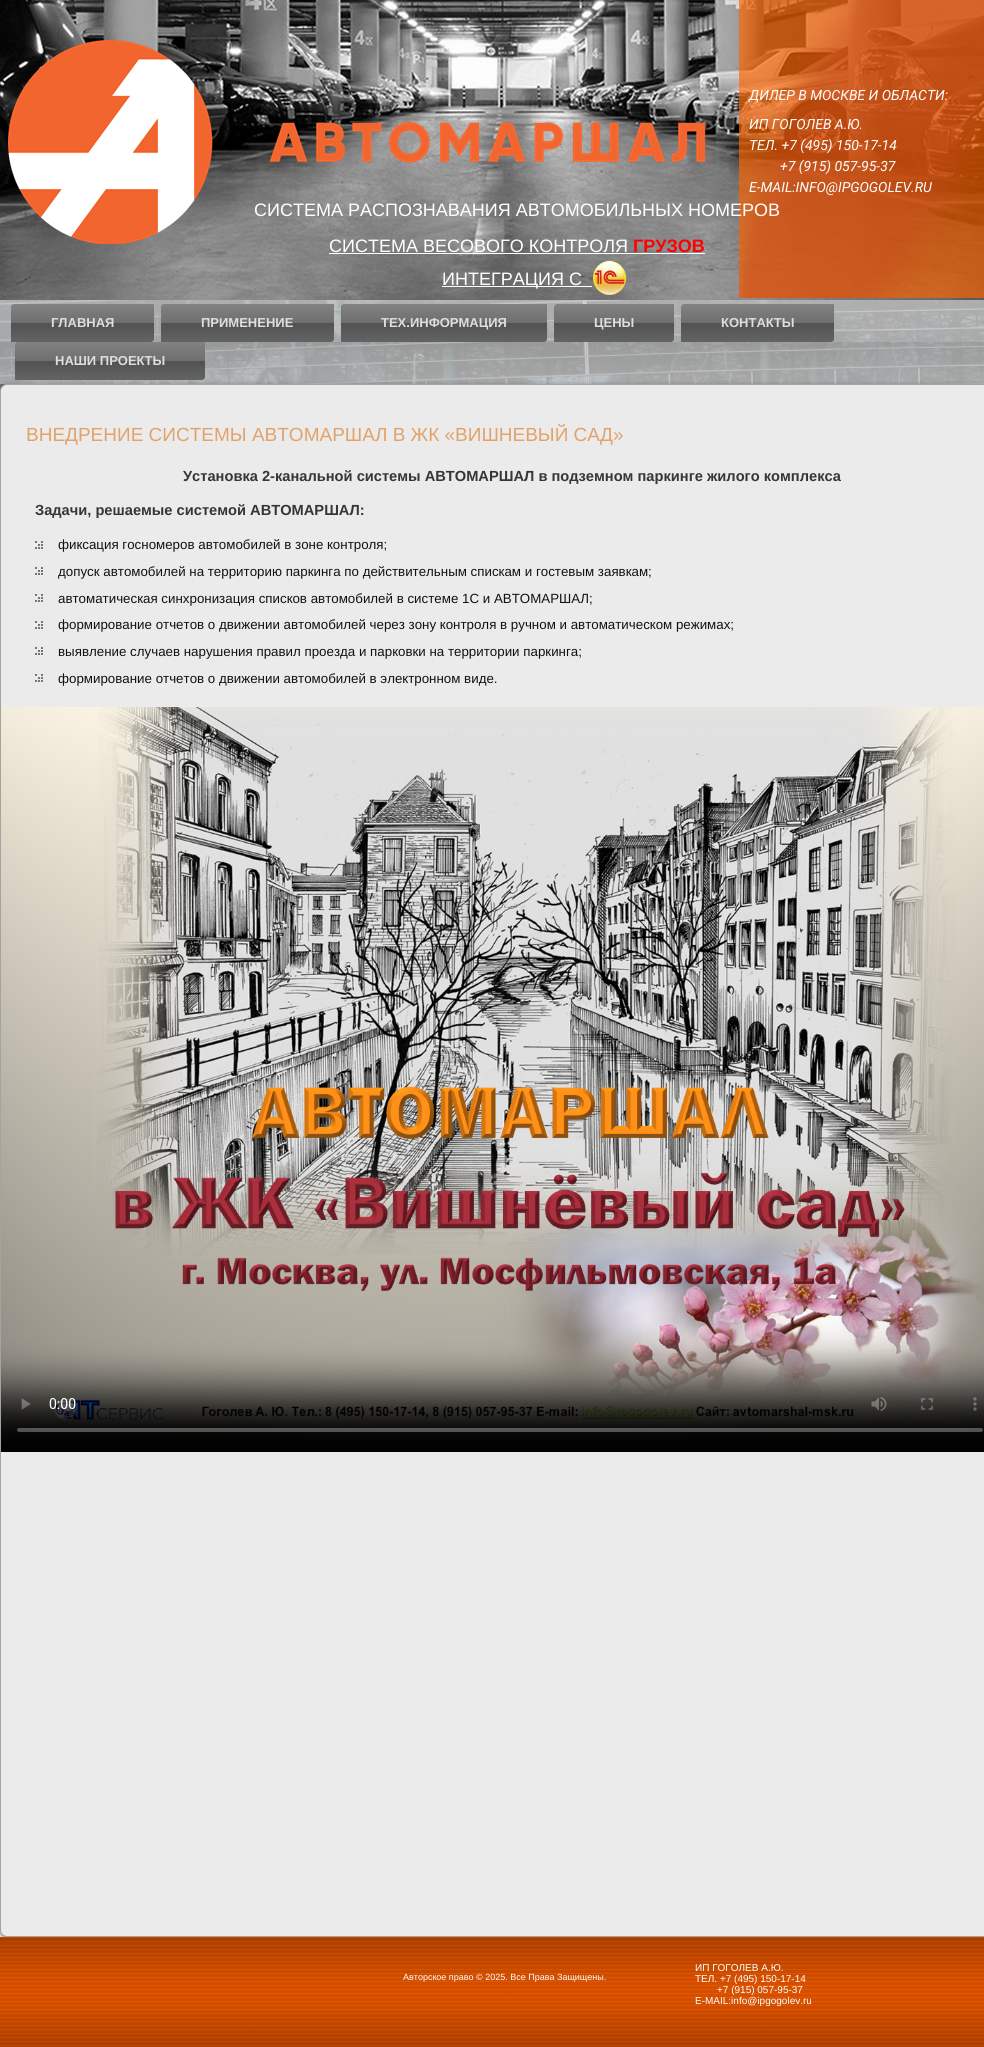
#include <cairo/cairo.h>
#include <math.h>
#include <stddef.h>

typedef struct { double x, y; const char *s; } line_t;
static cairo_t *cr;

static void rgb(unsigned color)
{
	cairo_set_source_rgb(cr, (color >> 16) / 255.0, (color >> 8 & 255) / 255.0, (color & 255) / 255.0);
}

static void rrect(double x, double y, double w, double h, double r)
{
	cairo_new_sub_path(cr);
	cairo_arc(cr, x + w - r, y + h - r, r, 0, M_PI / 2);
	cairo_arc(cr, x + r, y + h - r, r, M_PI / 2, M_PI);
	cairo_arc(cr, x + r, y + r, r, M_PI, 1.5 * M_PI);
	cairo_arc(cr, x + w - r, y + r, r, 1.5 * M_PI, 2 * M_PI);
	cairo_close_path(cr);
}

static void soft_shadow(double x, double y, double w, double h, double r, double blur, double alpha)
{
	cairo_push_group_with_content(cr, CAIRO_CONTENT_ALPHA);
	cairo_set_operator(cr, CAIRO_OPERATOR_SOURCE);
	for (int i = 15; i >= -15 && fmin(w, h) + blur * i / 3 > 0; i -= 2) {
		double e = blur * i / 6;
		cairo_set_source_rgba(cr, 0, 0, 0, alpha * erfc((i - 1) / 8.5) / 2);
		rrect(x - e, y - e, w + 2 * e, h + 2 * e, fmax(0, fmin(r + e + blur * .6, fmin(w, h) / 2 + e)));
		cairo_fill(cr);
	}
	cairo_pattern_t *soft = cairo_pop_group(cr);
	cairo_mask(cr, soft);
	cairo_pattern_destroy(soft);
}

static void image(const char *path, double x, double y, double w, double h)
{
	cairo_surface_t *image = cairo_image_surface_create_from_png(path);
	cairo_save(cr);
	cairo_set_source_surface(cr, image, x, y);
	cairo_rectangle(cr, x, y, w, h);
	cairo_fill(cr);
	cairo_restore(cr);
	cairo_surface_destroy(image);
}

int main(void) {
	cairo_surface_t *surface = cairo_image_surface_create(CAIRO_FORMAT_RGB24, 984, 2047);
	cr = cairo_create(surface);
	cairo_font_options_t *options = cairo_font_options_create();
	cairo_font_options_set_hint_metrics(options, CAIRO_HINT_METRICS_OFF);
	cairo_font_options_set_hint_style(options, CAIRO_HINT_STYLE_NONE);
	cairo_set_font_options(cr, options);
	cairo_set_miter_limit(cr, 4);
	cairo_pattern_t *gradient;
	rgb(0xffffff);
	cairo_paint(cr);
	image("img/1.png", 0, 300, 984, 91);
	image("img/2.png", 0, 0, 984, 300);
	image("img/3.png", 8, 40, 698, 204);
	image("img/4.png", 739, 0, 245, 298);
	rgb(0xffffff);
	cairo_rectangle(cr, 329, 253, 376, 1);
	cairo_fill(cr);
	cairo_rectangle(cr, 442, 286, 150, 1);
	cairo_fill(cr);
	image("img/5.png", 592, 260, 35, 35);
	rgb(0x000000);
	soft_shadow(-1, 383, 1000, 1557, 9, 2, 0.4);
	gradient = cairo_pattern_create_linear(500, 300, 500, 384);
	cairo_pattern_add_color_stop_rgba(gradient, 0, 0.98, 0.98, 0.98, 0.5);
	cairo_pattern_add_color_stop_rgba(gradient, 0.5, 0.898, 0.898, 0.898, 0.5);
	cairo_pattern_add_color_stop_rgba(gradient, 0.5, 0.788, 0.788, 0.788, 0.5);
	cairo_pattern_add_color_stop_rgba(gradient, 1, 0.859, 0.859, 0.859, 0.5);
	cairo_set_source(cr, gradient);
	cairo_pattern_destroy(gradient);
	cairo_rectangle(cr, 0, 300, 984, 84);
	cairo_fill(cr);
	gradient = cairo_pattern_create_linear(83, 304, 83, 342);
	cairo_pattern_add_color_stop_rgba(gradient, 0, 0.51, 0.51, 0.51, 1);
	cairo_pattern_add_color_stop_rgba(gradient, 0.06, 0.502, 0.502, 0.502, 1);
	cairo_pattern_add_color_stop_rgba(gradient, 0.5, 0.431, 0.431, 0.431, 1);
	cairo_pattern_add_color_stop_rgba(gradient, 0.5, 0.322, 0.322, 0.322, 1);
	cairo_pattern_add_color_stop_rgba(gradient, 1, 0.388, 0.388, 0.388, 1);
	cairo_set_source(cr, gradient);
	cairo_pattern_destroy(gradient);
	cairo_new_path(cr);
	cairo_move_to(cr, 14, 304);
	cairo_line_to(cr, 154, 304);
	cairo_line_to(cr, 154, 339);
	cairo_curve_to(cr, 154, 340.5, 152.5, 342, 151, 342);
	cairo_line_to(cr, 11, 342);
	cairo_line_to(cr, 11, 307);
	cairo_curve_to(cr, 11, 305.5, 12.5, 304, 14, 304);
	cairo_close_path(cr);
	cairo_fill(cr);
	image("img/6.png", 157, 312, 1, 21);
	gradient = cairo_pattern_create_linear(248, 304, 248, 342);
	cairo_pattern_add_color_stop_rgba(gradient, 0, 0.51, 0.51, 0.51, 1);
	cairo_pattern_add_color_stop_rgba(gradient, 0.06, 0.502, 0.502, 0.502, 1);
	cairo_pattern_add_color_stop_rgba(gradient, 0.5, 0.431, 0.431, 0.431, 1);
	cairo_pattern_add_color_stop_rgba(gradient, 0.5, 0.322, 0.322, 0.322, 1);
	cairo_pattern_add_color_stop_rgba(gradient, 1, 0.388, 0.388, 0.388, 1);
	cairo_set_source(cr, gradient);
	cairo_pattern_destroy(gradient);
	cairo_new_path(cr);
	cairo_move_to(cr, 164, 304);
	cairo_line_to(cr, 334, 304);
	cairo_line_to(cr, 334, 339);
	cairo_curve_to(cr, 334, 340.5, 332.5, 342, 331, 342);
	cairo_line_to(cr, 161, 342);
	cairo_line_to(cr, 161, 307);
	cairo_curve_to(cr, 161, 305.5, 162.5, 304, 164, 304);
	cairo_close_path(cr);
	cairo_fill(cr);
	image("img/7.png", 337, 312, 1, 13);
	gradient = cairo_pattern_create_linear(444, 304, 444, 342);
	cairo_pattern_add_color_stop_rgba(gradient, 0, 0.51, 0.51, 0.51, 1);
	cairo_pattern_add_color_stop_rgba(gradient, 0.06, 0.502, 0.502, 0.502, 1);
	cairo_pattern_add_color_stop_rgba(gradient, 0.5, 0.431, 0.431, 0.431, 1);
	cairo_pattern_add_color_stop_rgba(gradient, 0.5, 0.322, 0.322, 0.322, 1);
	cairo_pattern_add_color_stop_rgba(gradient, 1, 0.388, 0.388, 0.388, 1);
	cairo_set_source(cr, gradient);
	cairo_pattern_destroy(gradient);
	cairo_new_path(cr);
	cairo_move_to(cr, 344, 304);
	cairo_line_to(cr, 547, 304);
	cairo_line_to(cr, 547, 339);
	cairo_curve_to(cr, 547, 340.5, 545.5, 342, 544, 342);
	cairo_line_to(cr, 341, 342);
	cairo_line_to(cr, 341, 307);
	cairo_curve_to(cr, 341, 305.5, 342.5, 304, 344, 304);
	cairo_close_path(cr);
	cairo_fill(cr);
	image("img/8.png", 550, 312, 1, 21);
	gradient = cairo_pattern_create_linear(614, 304, 614, 342);
	cairo_pattern_add_color_stop_rgba(gradient, 0, 0.51, 0.51, 0.51, 1);
	cairo_pattern_add_color_stop_rgba(gradient, 0.06, 0.502, 0.502, 0.502, 1);
	cairo_pattern_add_color_stop_rgba(gradient, 0.5, 0.431, 0.431, 0.431, 1);
	cairo_pattern_add_color_stop_rgba(gradient, 0.5, 0.322, 0.322, 0.322, 1);
	cairo_pattern_add_color_stop_rgba(gradient, 1, 0.388, 0.388, 0.388, 1);
	cairo_set_source(cr, gradient);
	cairo_pattern_destroy(gradient);
	cairo_new_path(cr);
	cairo_move_to(cr, 557, 304);
	cairo_line_to(cr, 674, 304);
	cairo_line_to(cr, 674, 339);
	cairo_curve_to(cr, 674, 340.5, 672.5, 342, 671, 342);
	cairo_line_to(cr, 554, 342);
	cairo_line_to(cr, 554, 307);
	cairo_curve_to(cr, 554, 305.5, 555.5, 304, 557, 304);
	cairo_close_path(cr);
	cairo_fill(cr);
	image("img/9.png", 677, 312, 1, 21);
	gradient = cairo_pattern_create_linear(758, 304, 758, 342);
	cairo_pattern_add_color_stop_rgba(gradient, 0, 0.51, 0.51, 0.51, 1);
	cairo_pattern_add_color_stop_rgba(gradient, 0.06, 0.502, 0.502, 0.502, 1);
	cairo_pattern_add_color_stop_rgba(gradient, 0.5, 0.431, 0.431, 0.431, 1);
	cairo_pattern_add_color_stop_rgba(gradient, 0.5, 0.322, 0.322, 0.322, 1);
	cairo_pattern_add_color_stop_rgba(gradient, 1, 0.388, 0.388, 0.388, 1);
	cairo_set_source(cr, gradient);
	cairo_pattern_destroy(gradient);
	cairo_new_path(cr);
	cairo_move_to(cr, 684, 304);
	cairo_line_to(cr, 834, 304);
	cairo_line_to(cr, 834, 339);
	cairo_curve_to(cr, 834, 340.5, 832.5, 342, 831, 342);
	cairo_line_to(cr, 681, 342);
	cairo_line_to(cr, 681, 307);
	cairo_curve_to(cr, 681, 305.5, 682.5, 304, 684, 304);
	cairo_close_path(cr);
	cairo_fill(cr);
	image("img/10.png", 11, 350, 1, 21);
	gradient = cairo_pattern_create_linear(110, 342, 110, 380);
	cairo_pattern_add_color_stop_rgba(gradient, 0, 0.51, 0.51, 0.51, 1);
	cairo_pattern_add_color_stop_rgba(gradient, 0.06, 0.502, 0.502, 0.502, 1);
	cairo_pattern_add_color_stop_rgba(gradient, 0.5, 0.431, 0.431, 0.431, 1);
	cairo_pattern_add_color_stop_rgba(gradient, 0.5, 0.322, 0.322, 0.322, 1);
	cairo_pattern_add_color_stop_rgba(gradient, 1, 0.388, 0.388, 0.388, 1);
	cairo_set_source(cr, gradient);
	cairo_pattern_destroy(gradient);
	cairo_new_path(cr);
	cairo_move_to(cr, 18, 342);
	cairo_line_to(cr, 205, 342);
	cairo_line_to(cr, 205, 377);
	cairo_curve_to(cr, 205, 378.5, 203.5, 380, 202, 380);
	cairo_line_to(cr, 15, 380);
	cairo_line_to(cr, 15, 345);
	cairo_curve_to(cr, 15, 343.5, 16.5, 342, 18, 342);
	cairo_close_path(cr);
	cairo_fill(cr);
	rgb(0xebebeb);
	rrect(0.5, 384.5, 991, 1552, 6.5);
	cairo_fill_preserve(cr);
	rgb(0xa3a3a3);
	cairo_set_line_width(cr, 1);
	cairo_stroke(cr);
	image("img/11.png", 35, 541, 8, 8);
	image("img/11.png", 35, 567, 8, 8);
	image("img/11.png", 35, 594, 8, 8);
	image("img/11.png", 35, 621, 8, 8);
	image("img/11.png", 35, 647, 8, 8);
	image("img/11.png", 35, 674, 8, 8);
	image("img/12.png", 1, 707, 983, 745);
	image("img/13.png", 0, 1937, 984, 110);
	cairo_select_font_face(cr, "Roboto", CAIRO_FONT_SLANT_ITALIC, CAIRO_FONT_WEIGHT_NORMAL);
	cairo_set_font_size(cr, 14);
	rgb(0xffffff);
	{
		static const line_t items[] = {
			{749, 100, "ДИЛЕР В МОСКВЕ И ОБЛАСТИ:"},
			{749, 129, "ИП ГОГОЛЕВ А.Ю."},
			{749, 150, "ТЕЛ. +7 (495) 150-17-14"},
			{780, 171, "+7 (915) 057-95-37"},
			{749, 192, "E-MAIL:INFO@IPGOGOLEV.RU"},
		};
		for (size_t i = 0; i < sizeof items / sizeof *items; i++) {
			cairo_move_to(cr, items[i].x, items[i].y);
			cairo_show_text(cr, items[i].s);
		}
	}
	cairo_select_font_face(cr, "Liberation Sans", CAIRO_FONT_SLANT_NORMAL, CAIRO_FONT_WEIGHT_NORMAL);
	cairo_set_font_size(cr, 18);
	cairo_move_to(cr, 254, 216);
	cairo_show_text(cr, "СИСТЕМА РАСПОЗНАВАНИЯ АВТОМОБИЛЬНЫХ НОМЕРОВ");
	cairo_move_to(cr, 329, 252);
	cairo_show_text(cr, "СИСТЕМА ВЕСОВОГО КОНТРОЛЯ");
	cairo_select_font_face(cr, "Liberation Sans", CAIRO_FONT_SLANT_NORMAL, CAIRO_FONT_WEIGHT_BOLD);
	rgb(0xff0000);
	cairo_move_to(cr, 633, 252);
	cairo_show_text(cr, "ГРУЗОВ");
	cairo_select_font_face(cr, "Liberation Sans", CAIRO_FONT_SLANT_NORMAL, CAIRO_FONT_WEIGHT_NORMAL);
	rgb(0xffffff);
	cairo_move_to(cr, 442, 285);
	cairo_show_text(cr, "ИНТЕГРАЦИЯ С");
	cairo_select_font_face(cr, "Liberation Sans", CAIRO_FONT_SLANT_NORMAL, CAIRO_FONT_WEIGHT_BOLD);
	cairo_set_font_size(cr, 13);
	rgb(0xdedede);
	{
		static const line_t items[] = {
			{51, 327, "ГЛАВНАЯ"},
			{201, 327, "ПРИМЕНЕНИЕ"},
			{381, 327, "ТЕХ.ИНФОРМАЦИЯ"},
			{594, 327, "ЦЕНЫ"},
			{721, 327, "КОНТАКТЫ"},
			{55, 365, "НАШИ ПРОЕКТЫ"},
		};
		for (size_t i = 0; i < sizeof items / sizeof *items; i++) {
			cairo_move_to(cr, items[i].x, items[i].y);
			cairo_show_text(cr, items[i].s);
		}
	}
	cairo_select_font_face(cr, "Liberation Sans", CAIRO_FONT_SLANT_NORMAL, CAIRO_FONT_WEIGHT_NORMAL);
	cairo_set_font_size(cr, 19);
	rgb(0xe2a26a);
	cairo_move_to(cr, 26, 441);
	cairo_show_text(cr, "ВНЕДРЕНИЕ СИСТЕМЫ АВТОМАРШАЛ В ЖК «ВИШНЕВЫЙ САД»");
	cairo_select_font_face(cr, "Liberation Sans", CAIRO_FONT_SLANT_NORMAL, CAIRO_FONT_WEIGHT_BOLD);
	cairo_set_font_size(cr, 14.65);
	rgb(0x363636);
	cairo_move_to(cr, 183, 481);
	cairo_show_text(cr, "Установка 2-канальной системы АВТОМАРШАЛ в подземном паркинге жилого комплекса");
	cairo_move_to(cr, 35, 515);
	cairo_show_text(cr, "Задачи, решаемые системой АВТОМАРШАЛ:");
	cairo_select_font_face(cr, "Liberation Sans", CAIRO_FONT_SLANT_NORMAL, CAIRO_FONT_WEIGHT_NORMAL);
	cairo_set_font_size(cr, 13.33);
	rgb(0x121212);
	{
		static const line_t items[] = {
			{58, 549, "фиксация госномеров автомобилей в зоне контроля;"},
			{58, 576, "допуск автомобилей на территорию паркинга по действительным спискам и гостевым заявкам;"},
			{58, 603, "автоматическая синхронизация списков автомобилей в системе 1С и АВТОМАРШАЛ;"},
			{58, 629, "формирование отчетов о движении автомобилей через зону контроля в ручном и автоматическом режимах;"},
			{58, 656, "выявление случаев нарушения правил проезда и парковки на территории паркинга;"},
			{58, 683, "формирование отчетов о движении автомобилей в электронном виде."},
		};
		for (size_t i = 0; i < sizeof items / sizeof *items; i++) {
			cairo_move_to(cr, items[i].x, items[i].y);
			cairo_show_text(cr, items[i].s);
		}
	}
	cairo_set_font_size(cr, 9);
	rgb(0xffffff);
	cairo_move_to(cr, 403, 1980);
	cairo_show_text(cr, "Авторское право © 2025. Все Права Защищены.");
	cairo_set_font_size(cr, 10);
	{
		static const line_t items[] = {
			{695, 1971, "ИП ГОГОЛЕВ А.Ю."},
			{695, 1982, "ТЕЛ. +7 (495) 150-17-14"},
			{717, 1993, "+7 (915) 057-95-37"},
			{695, 2004, "E-MAIL:info@ipgogolev.ru"},
		};
		for (size_t i = 0; i < sizeof items / sizeof *items; i++) {
			cairo_move_to(cr, items[i].x, items[i].y);
			cairo_show_text(cr, items[i].s);
		}
	}
	cairo_surface_write_to_png(surface, "page.png");
	cairo_font_options_destroy(options);
	cairo_destroy(cr);
	cairo_surface_destroy(surface);
	return 0;
}
